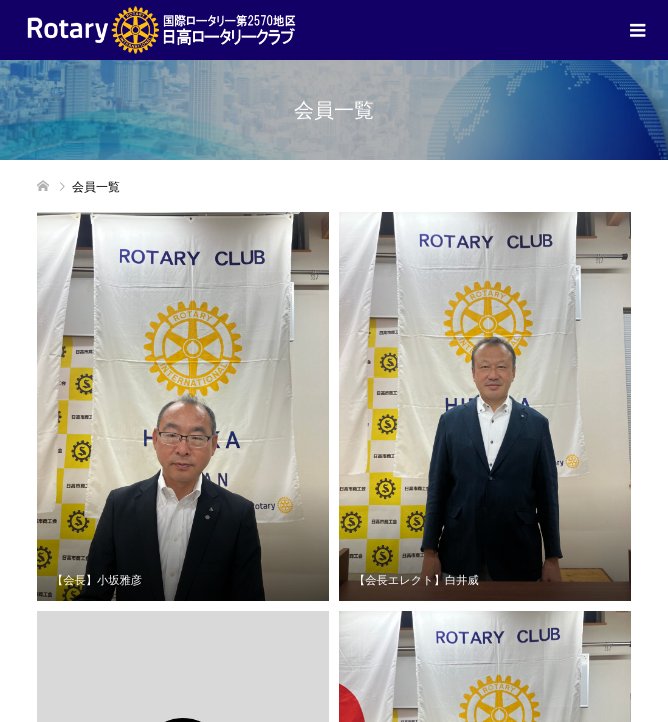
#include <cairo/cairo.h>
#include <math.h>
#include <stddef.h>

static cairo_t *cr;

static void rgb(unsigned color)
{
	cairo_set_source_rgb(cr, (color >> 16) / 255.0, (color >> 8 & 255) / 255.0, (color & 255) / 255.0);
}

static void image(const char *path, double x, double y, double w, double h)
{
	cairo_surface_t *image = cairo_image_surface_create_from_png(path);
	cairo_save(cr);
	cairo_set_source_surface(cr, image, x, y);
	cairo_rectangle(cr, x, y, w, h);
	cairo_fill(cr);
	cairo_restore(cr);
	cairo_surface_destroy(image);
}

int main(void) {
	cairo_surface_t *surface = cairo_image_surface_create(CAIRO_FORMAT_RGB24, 668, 722);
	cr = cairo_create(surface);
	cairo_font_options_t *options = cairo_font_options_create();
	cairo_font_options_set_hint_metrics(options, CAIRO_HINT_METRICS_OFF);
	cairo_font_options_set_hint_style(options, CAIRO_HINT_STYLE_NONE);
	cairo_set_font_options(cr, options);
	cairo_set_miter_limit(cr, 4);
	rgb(0xffffff);
	cairo_paint(cr);
	rgb(0x120066);
	cairo_rectangle(cr, 0, 0, 668, 60);
	cairo_fill(cr);
	image("img/1.png", 27, 6, 269, 48);
	image("img/2.png", 630, 23, 16, 14);
	image("img/3.png", 0, 60, 668, 100);
	image("img/4.png", 37, 180, 12, 11);
	image("img/5.png", 60, 182, 5, 9);
	image("img/6.png", 37, 212, 292, 389);
	image("img/7.png", 339, 212, 292, 389);
	image("img/8.png", 37, 611, 292, 111);
	image("img/9.png", 339, 611, 292, 111);
	cairo_select_font_face(cr, "WenQuanYi Zen Hei Medium", CAIRO_FONT_SLANT_NORMAL, CAIRO_FONT_WEIGHT_NORMAL);
	cairo_set_font_size(cr, 20);
	rgb(0xffffff);
	cairo_move_to(cr, 294, 117);
	cairo_show_text(cr, "会員一覧");
	cairo_set_font_size(cr, 12);
	rgb(0x000000);
	cairo_move_to(cr, 72, 191);
	cairo_show_text(cr, "会員一覧");
	cairo_set_font_size(cr, 11.25);
	rgb(0xffffff);
	cairo_move_to(cr, 52, 584);
	cairo_show_text(cr, "【会長】小坂雅彦");
	cairo_move_to(cr, 354, 584);
	cairo_show_text(cr, "【会長エレクト】白井威");
	cairo_surface_write_to_png(surface, "page.png");
	cairo_font_options_destroy(options);
	cairo_destroy(cr);
	cairo_surface_destroy(surface);
	return 0;
}
